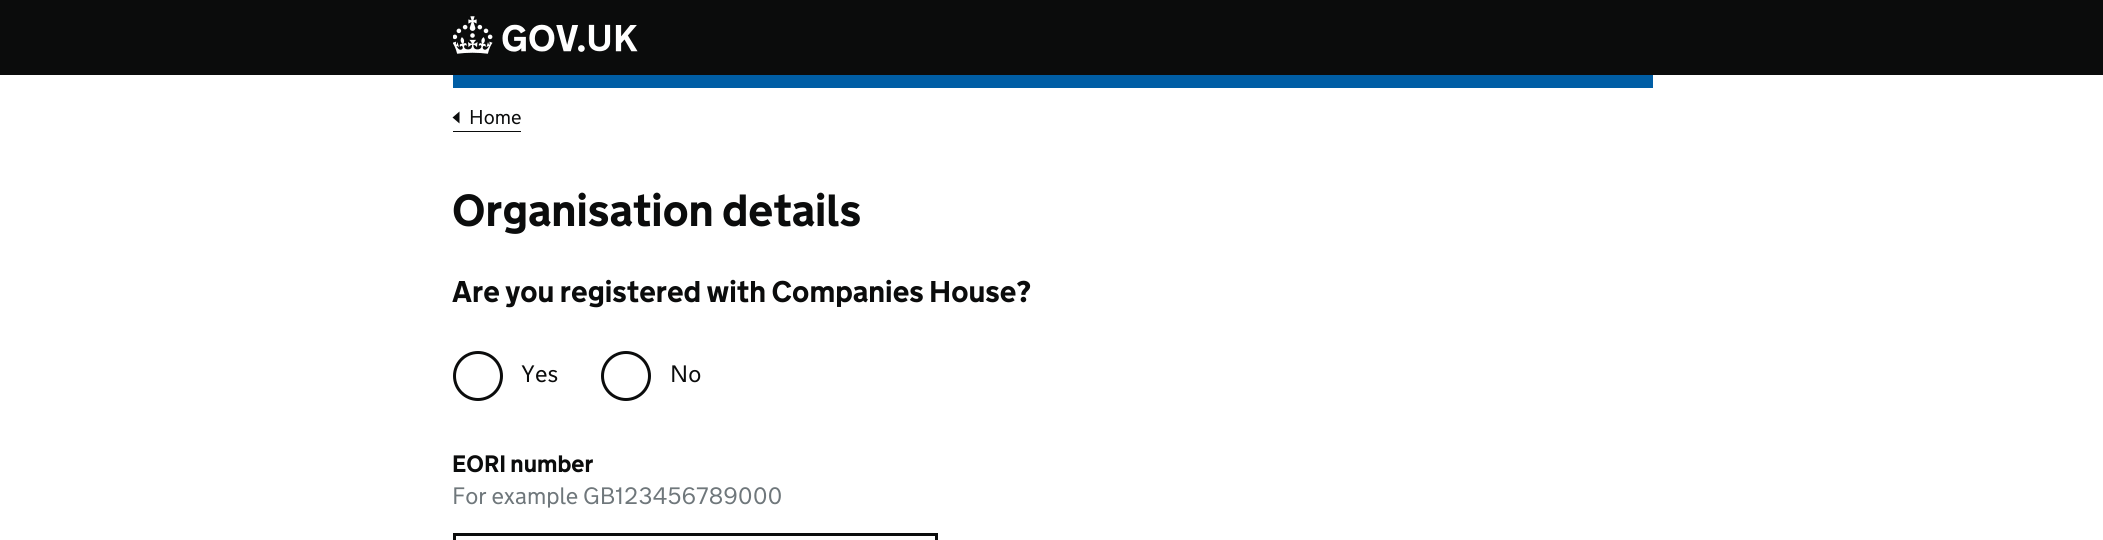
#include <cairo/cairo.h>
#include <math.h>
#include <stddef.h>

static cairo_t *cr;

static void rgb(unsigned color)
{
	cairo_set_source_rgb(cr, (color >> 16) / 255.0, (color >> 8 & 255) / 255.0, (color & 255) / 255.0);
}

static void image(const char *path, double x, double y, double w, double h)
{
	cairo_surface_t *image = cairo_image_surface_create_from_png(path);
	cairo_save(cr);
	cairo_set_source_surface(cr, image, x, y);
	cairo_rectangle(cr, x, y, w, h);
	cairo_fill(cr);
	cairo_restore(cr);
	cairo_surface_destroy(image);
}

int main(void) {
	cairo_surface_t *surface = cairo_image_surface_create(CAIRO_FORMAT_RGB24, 2103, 540);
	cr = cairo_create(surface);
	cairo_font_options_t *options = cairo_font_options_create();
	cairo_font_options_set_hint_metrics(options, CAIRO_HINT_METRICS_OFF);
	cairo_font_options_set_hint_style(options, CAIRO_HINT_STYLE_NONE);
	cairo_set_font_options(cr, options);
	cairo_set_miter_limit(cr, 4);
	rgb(0xffffff);
	cairo_paint(cr);
	rgb(0x0b0c0c);
	cairo_rectangle(cr, 0, 0, 2103, 75);
	cairo_fill(cr);
	rgb(0x005ea5);
	cairo_rectangle(cr, 453, 75, 1200, 13);
	cairo_fill(cr);
	image("img/1.png", 453, 16, 185, 38);
	rgb(0x0b0c0c);
	cairo_rectangle(cr, 453, 131, 68, 1);
	cairo_fill(cr);
	cairo_new_path(cr);
	cairo_move_to(cr, 459.5, 123.5);
	cairo_line_to(cr, 452.5, 117.5);
	cairo_line_to(cr, 459.5, 111.5);
	cairo_close_path(cr);
	cairo_fill(cr);
	cairo_arc(cr, 478, 376, 23.5, 0, 2 * M_PI);
	cairo_set_line_width(cr, 3);
	cairo_stroke(cr);
	cairo_arc(cr, 626, 376, 23.5, 0, 2 * M_PI);
	cairo_stroke(cr);
	cairo_rectangle(cr, 454.5, 534.5, 482, 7);
	cairo_stroke(cr);
	cairo_select_font_face(cr, "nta", CAIRO_FONT_SLANT_NORMAL, CAIRO_FONT_WEIGHT_NORMAL);
	cairo_set_font_size(cr, 20);
	cairo_move_to(cr, 469, 124);
	cairo_show_text(cr, "Home");
	cairo_select_font_face(cr, "nta", CAIRO_FONT_SLANT_NORMAL, CAIRO_FONT_WEIGHT_BOLD);
	cairo_set_font_size(cr, 45);
	cairo_move_to(cr, 452, 226);
	cairo_show_text(cr, "Organisation details");
	cairo_set_font_size(cr, 30);
	cairo_move_to(cr, 452, 302);
	cairo_show_text(cr, "Are you registered with Companies House?");
	cairo_select_font_face(cr, "nta", CAIRO_FONT_SLANT_NORMAL, CAIRO_FONT_WEIGHT_NORMAL);
	cairo_set_font_size(cr, 23.75);
	cairo_move_to(cr, 521, 382);
	cairo_show_text(cr, "Yes");
	cairo_move_to(cr, 670, 382);
	cairo_show_text(cr, "No");
	cairo_select_font_face(cr, "nta", CAIRO_FONT_SLANT_NORMAL, CAIRO_FONT_WEIGHT_BOLD);
	cairo_move_to(cr, 452, 472);
	cairo_show_text(cr, "EORI number");
	cairo_select_font_face(cr, "nta", CAIRO_FONT_SLANT_NORMAL, CAIRO_FONT_WEIGHT_NORMAL);
	rgb(0x6f777b);
	cairo_move_to(cr, 452, 504);
	cairo_show_text(cr, "For example GB123456789000");
	cairo_surface_write_to_png(surface, "page.png");
	cairo_font_options_destroy(options);
	cairo_destroy(cr);
	cairo_surface_destroy(surface);
	return 0;
}
